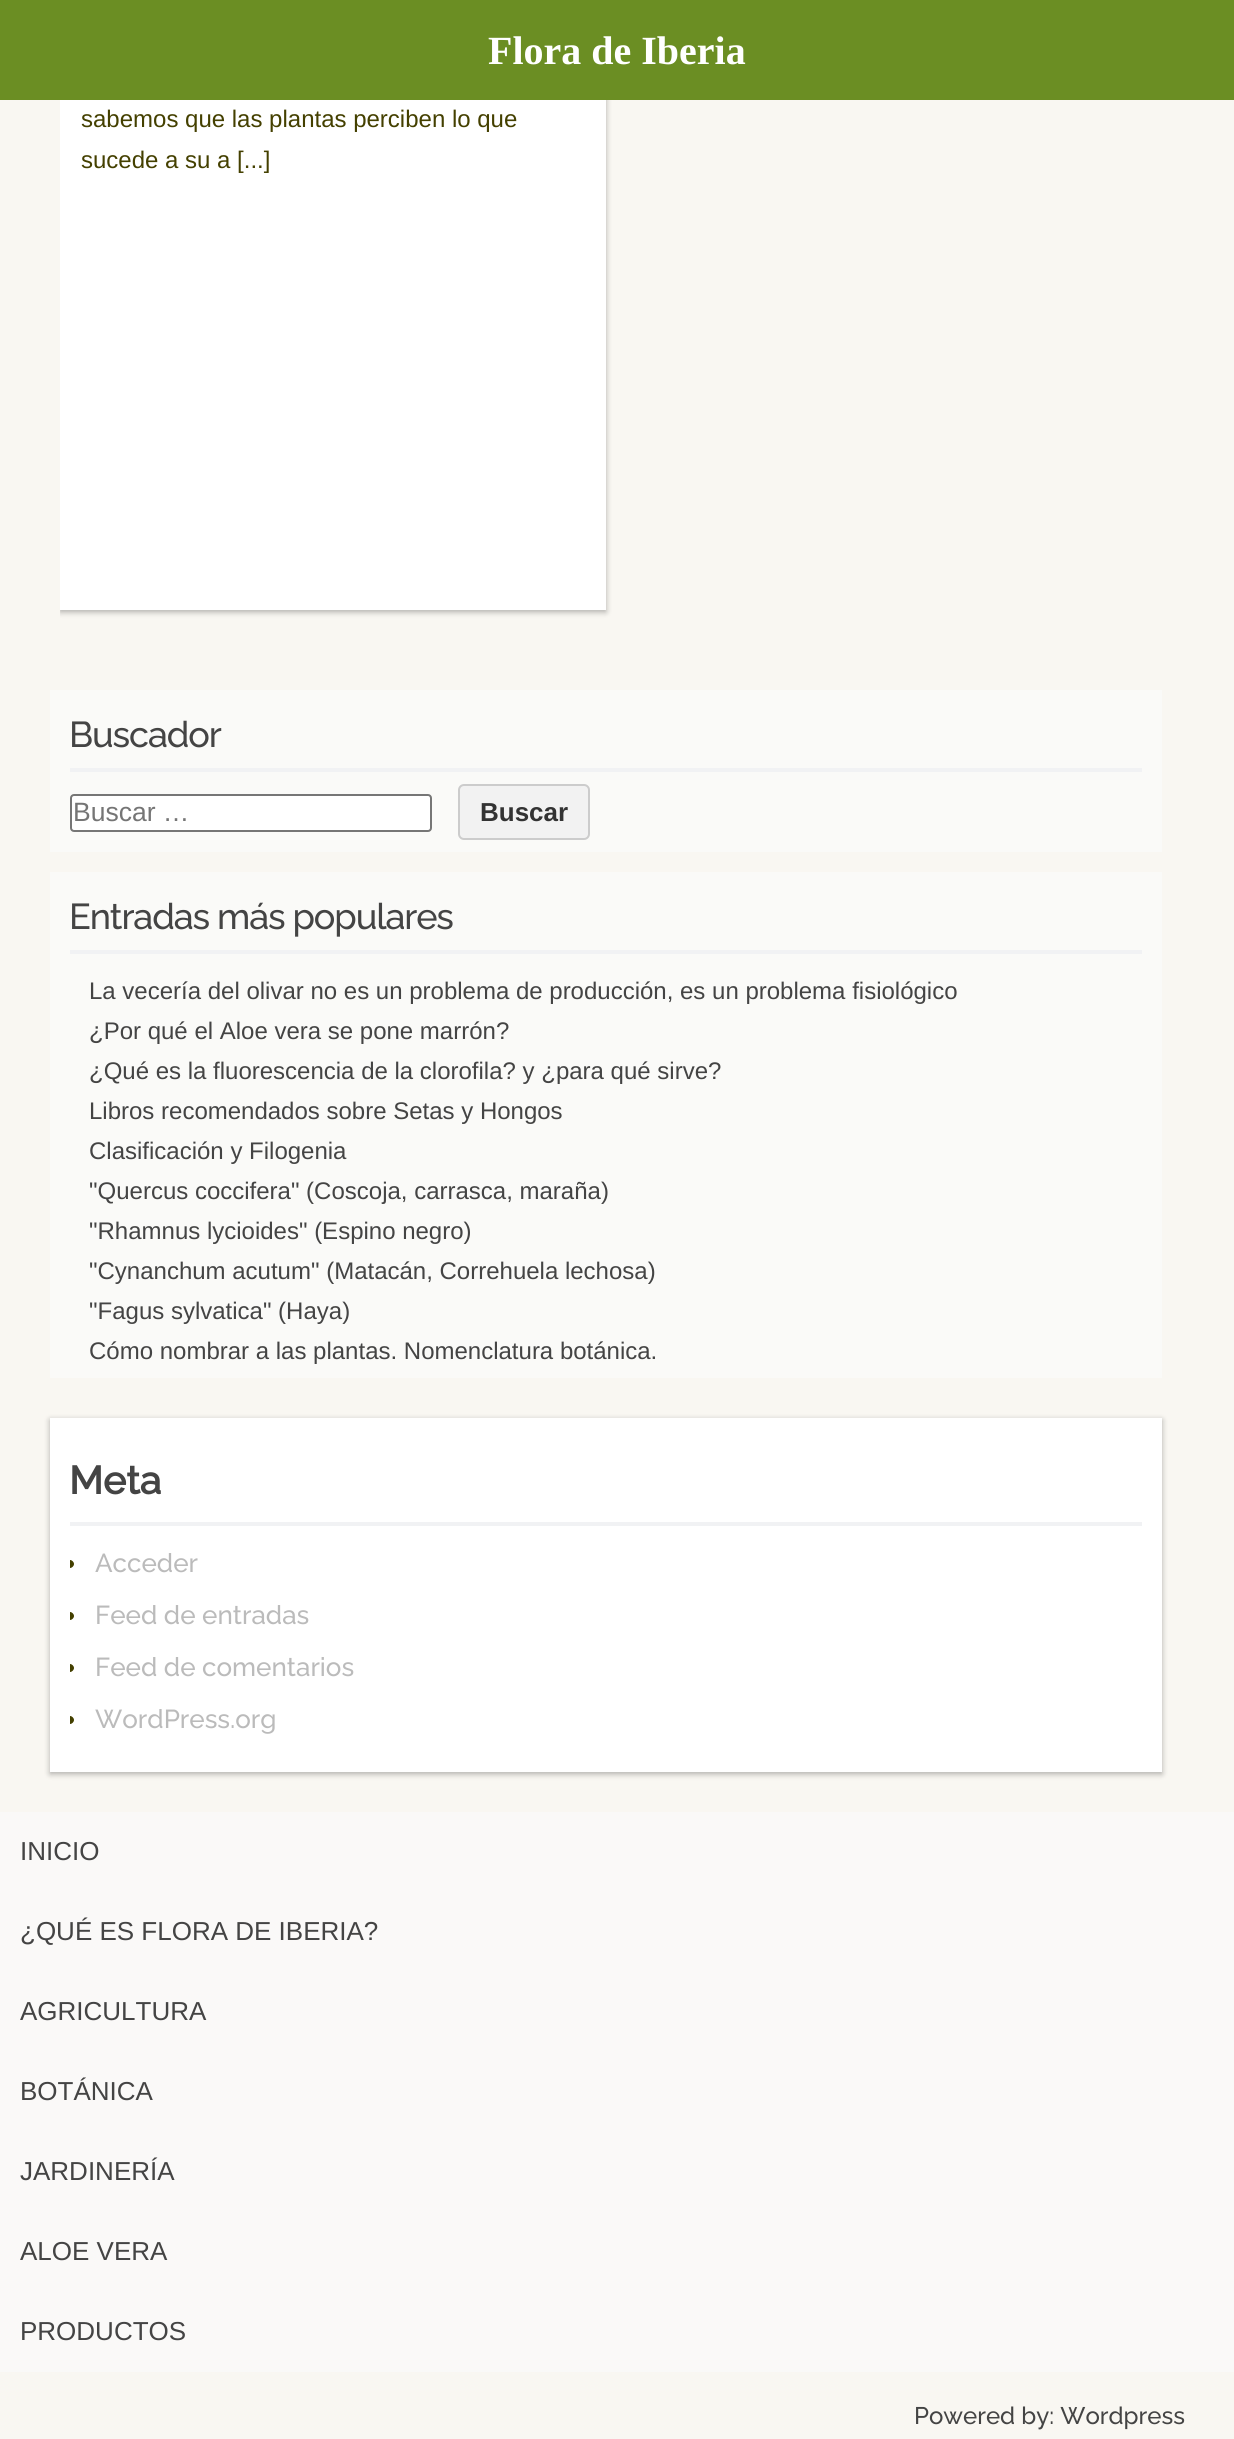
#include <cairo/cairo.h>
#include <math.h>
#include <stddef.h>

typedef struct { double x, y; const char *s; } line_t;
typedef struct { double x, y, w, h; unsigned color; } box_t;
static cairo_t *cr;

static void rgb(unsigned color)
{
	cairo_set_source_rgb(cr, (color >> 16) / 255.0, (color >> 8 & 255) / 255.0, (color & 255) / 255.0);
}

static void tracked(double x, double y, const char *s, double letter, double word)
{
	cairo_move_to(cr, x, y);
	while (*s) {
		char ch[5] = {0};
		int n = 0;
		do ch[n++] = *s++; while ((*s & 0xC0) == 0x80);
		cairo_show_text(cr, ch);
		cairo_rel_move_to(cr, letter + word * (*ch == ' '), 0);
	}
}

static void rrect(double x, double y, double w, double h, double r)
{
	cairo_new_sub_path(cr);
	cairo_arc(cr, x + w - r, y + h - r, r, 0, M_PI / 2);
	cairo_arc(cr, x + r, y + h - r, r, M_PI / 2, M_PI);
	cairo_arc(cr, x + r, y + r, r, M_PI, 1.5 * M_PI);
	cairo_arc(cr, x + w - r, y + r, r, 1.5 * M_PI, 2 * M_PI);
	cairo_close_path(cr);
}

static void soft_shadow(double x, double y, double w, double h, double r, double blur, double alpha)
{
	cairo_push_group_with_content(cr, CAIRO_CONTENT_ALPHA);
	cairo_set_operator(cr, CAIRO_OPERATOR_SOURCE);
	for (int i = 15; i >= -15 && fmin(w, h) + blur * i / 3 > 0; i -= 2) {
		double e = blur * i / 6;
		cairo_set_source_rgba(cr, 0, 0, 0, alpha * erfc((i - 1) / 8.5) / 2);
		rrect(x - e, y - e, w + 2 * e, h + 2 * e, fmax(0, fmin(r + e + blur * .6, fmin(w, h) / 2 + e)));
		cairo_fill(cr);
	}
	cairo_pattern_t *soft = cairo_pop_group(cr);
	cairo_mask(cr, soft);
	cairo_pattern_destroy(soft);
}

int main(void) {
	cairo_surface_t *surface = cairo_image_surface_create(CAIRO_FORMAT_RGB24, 1234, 2439);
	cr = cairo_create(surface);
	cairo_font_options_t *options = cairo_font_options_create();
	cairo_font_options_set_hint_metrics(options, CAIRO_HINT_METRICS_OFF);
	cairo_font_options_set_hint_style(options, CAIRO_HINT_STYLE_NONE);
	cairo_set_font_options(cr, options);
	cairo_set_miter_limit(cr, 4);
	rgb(0xf9f7f2);
	cairo_paint(cr);
	cairo_save(cr);
	cairo_rectangle(cr, 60, 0, 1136, 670);
	cairo_clip(cr);
	rgb(0x000000);
	soft_shadow(60, -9, 546, 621, 0, 3, 0.3);
	cairo_restore(cr);
	{
		static const box_t items[] = {
			{0, 0, 1234, 100, 0x6b8e23},
			{60, 100, 546, 510, 0xffffff},
			{50, 690, 1112, 162, 0xfafaf8},
			{70, 768, 1072, 4, 0xf1f2f4},
		};
		for (size_t i = 0; i < sizeof items / sizeof *items; i++) {
			rgb(items[i].color);
			cairo_rectangle(cr, items[i].x, items[i].y, items[i].w, items[i].h);
			cairo_fill(cr);
		}
	}
	rgb(0xffffff);
	rrect(71, 795, 360, 36, 3);
	cairo_fill_preserve(cr);
	rgb(0x767676);
	cairo_stroke(cr);
	rgb(0xf2f2f2);
	rrect(459, 785, 130, 54, 5);
	cairo_fill_preserve(cr);
	rgb(0xcccccc);
	cairo_stroke(cr);
	rgb(0xfafaf8);
	cairo_rectangle(cr, 50, 872, 1112, 506);
	cairo_fill(cr);
	rgb(0xf1f2f4);
	cairo_rectangle(cr, 70, 950, 1072, 4);
	cairo_fill(cr);
	rgb(0x000000);
	soft_shadow(50, 1420, 1112, 354, 0, 3, 0.3);
	rgb(0xffffff);
	cairo_rectangle(cr, 50, 1418, 1112, 354);
	cairo_fill(cr);
	rgb(0xf1f2f4);
	cairo_rectangle(cr, 70, 1522, 1072, 4);
	cairo_fill(cr);
	rgb(0x444000);
	cairo_new_path(cr);
	cairo_move_to(cr, 70, 1560);
	cairo_curve_to(cr, 72, 1560, 74, 1562, 74, 1564);
	cairo_curve_to(cr, 74, 1566, 72, 1568, 70, 1568);
	cairo_close_path(cr);
	cairo_fill(cr);
	cairo_new_path(cr);
	cairo_move_to(cr, 70, 1612);
	cairo_curve_to(cr, 72, 1612, 74, 1614, 74, 1616);
	cairo_curve_to(cr, 74, 1618, 72, 1620, 70, 1620);
	cairo_close_path(cr);
	cairo_fill(cr);
	cairo_new_path(cr);
	cairo_move_to(cr, 70, 1664);
	cairo_curve_to(cr, 72, 1664, 74, 1666, 74, 1668);
	cairo_curve_to(cr, 74, 1670, 72, 1672, 70, 1672);
	cairo_close_path(cr);
	cairo_fill(cr);
	cairo_new_path(cr);
	cairo_move_to(cr, 70, 1716);
	cairo_curve_to(cr, 72, 1716, 74, 1718, 74, 1720);
	cairo_curve_to(cr, 74, 1722, 72, 1724, 70, 1724);
	cairo_close_path(cr);
	cairo_fill(cr);
	rgb(0xfaf9f8);
	cairo_rectangle(cr, 0, 1812, 1234, 560);
	cairo_fill(cr);
	cairo_select_font_face(cr, "Liberation Serif", CAIRO_FONT_SLANT_NORMAL, CAIRO_FONT_WEIGHT_BOLD);
	cairo_set_font_size(cr, 40);
	rgb(0xffffff);
	cairo_move_to(cr, 488, 64);
	cairo_show_text(cr, "Flora de Iberia");
	cairo_select_font_face(cr, "Liberation Sans", CAIRO_FONT_SLANT_NORMAL, CAIRO_FONT_WEIGHT_NORMAL);
	cairo_set_font_size(cr, 24);
	rgb(0x444000);
	cairo_move_to(cr, 81, 127);
	cairo_show_text(cr, "sabemos que las plantas perciben lo que");
	cairo_move_to(cr, 81, 168);
	cairo_show_text(cr, "sucede a su a [...]");
	cairo_select_font_face(cr, "Raleway Thin", CAIRO_FONT_SLANT_NORMAL, CAIRO_FONT_WEIGHT_NORMAL);
	cairo_set_font_size(cr, 36);
	rgb(0x444444);
	tracked(69, 747, "Buscador", -1.1, 0);
	cairo_select_font_face(cr, "Liberation Sans", CAIRO_FONT_SLANT_NORMAL, CAIRO_FONT_WEIGHT_NORMAL);
	cairo_set_font_size(cr, 26.5);
	rgb(0x757575);
	cairo_move_to(cr, 73, 821);
	cairo_show_text(cr, "Buscar …");
	cairo_select_font_face(cr, "Liberation Sans", CAIRO_FONT_SLANT_NORMAL, CAIRO_FONT_WEIGHT_BOLD);
	cairo_set_font_size(cr, 26);
	rgb(0x333333);
	cairo_move_to(cr, 480, 821);
	cairo_show_text(cr, "Buscar");
	cairo_select_font_face(cr, "Raleway Thin", CAIRO_FONT_SLANT_NORMAL, CAIRO_FONT_WEIGHT_NORMAL);
	cairo_set_font_size(cr, 36);
	rgb(0x444444);
	tracked(69, 929, "Entradas más populares", -1.1, 0);
	cairo_select_font_face(cr, "Liberation Sans", CAIRO_FONT_SLANT_NORMAL, CAIRO_FONT_WEIGHT_NORMAL);
	cairo_set_font_size(cr, 24);
	{
		static const line_t items[] = {
			{89, 999, "La vecería del olivar no es un problema de producción, es un problema fisiológico"},
			{89, 1039, "¿Por qué el Aloe vera se pone marrón?"},
			{89, 1079, "¿Qué es la fluorescencia de la clorofila? y ¿para qué sirve?"},
			{89, 1119, "Libros recomendados sobre Setas y Hongos"},
			{89, 1159, "Clasificación y Filogenia"},
			{89, 1199, "\"Quercus coccifera\" (Coscoja, carrasca, maraña)"},
			{89, 1239, "\"Rhamnus lycioides\" (Espino negro)"},
			{89, 1279, "\"Cynanchum acutum\" (Matacán, Correhuela lechosa)"},
			{89, 1319, "\"Fagus sylvatica\" (Haya)"},
			{89, 1359, "Cómo nombrar a las plantas. Nomenclatura botánica."},
		};
		for (size_t i = 0; i < sizeof items / sizeof *items; i++) {
			cairo_move_to(cr, items[i].x, items[i].y);
			cairo_show_text(cr, items[i].s);
		}
	}
	cairo_select_font_face(cr, "Raleway", CAIRO_FONT_SLANT_NORMAL, CAIRO_FONT_WEIGHT_BOLD);
	cairo_set_font_size(cr, 39);
	cairo_move_to(cr, 69, 1494);
	cairo_show_text(cr, "Meta");
	cairo_select_font_face(cr, "Raleway Thin", CAIRO_FONT_SLANT_NORMAL, CAIRO_FONT_WEIGHT_NORMAL);
	cairo_set_font_size(cr, 26);
	rgb(0xbbbbbb);
	{
		static const line_t items[] = {
			{95, 1572, "Acceder"},
			{95, 1624, "Feed de entradas"},
			{95, 1676, "Feed de comentarios"},
			{95, 1728, "WordPress.org"},
		};
		for (size_t i = 0; i < sizeof items / sizeof *items; i++) {
			cairo_move_to(cr, items[i].x, items[i].y);
			cairo_show_text(cr, items[i].s);
		}
	}
	cairo_select_font_face(cr, "Liberation Sans", CAIRO_FONT_SLANT_NORMAL, CAIRO_FONT_WEIGHT_NORMAL);
	rgb(0x444444);
	{
		static const line_t items[] = {
			{20, 1860, "INICIO"},
			{20, 1940, "¿QUÉ ES FLORA DE IBERIA?"},
			{20, 2020, "AGRICULTURA"},
			{20, 2100, "BOTÁNICA"},
			{20, 2180, "JARDINERÍA"},
			{20, 2260, "ALOE VERA"},
			{20, 2340, "PRODUCTOS"},
		};
		for (size_t i = 0; i < sizeof items / sizeof *items; i++) {
			cairo_move_to(cr, items[i].x, items[i].y);
			cairo_show_text(cr, items[i].s);
		}
	}
	cairo_select_font_face(cr, "Raleway Thin", CAIRO_FONT_SLANT_NORMAL, CAIRO_FONT_WEIGHT_NORMAL);
	cairo_set_font_size(cr, 24);
	cairo_move_to(cr, 914, 2424);
	cairo_show_text(cr, "Powered by: Wordpress");
	cairo_surface_write_to_png(surface, "page.png");
	cairo_font_options_destroy(options);
	cairo_destroy(cr);
	cairo_surface_destroy(surface);
	return 0;
}
